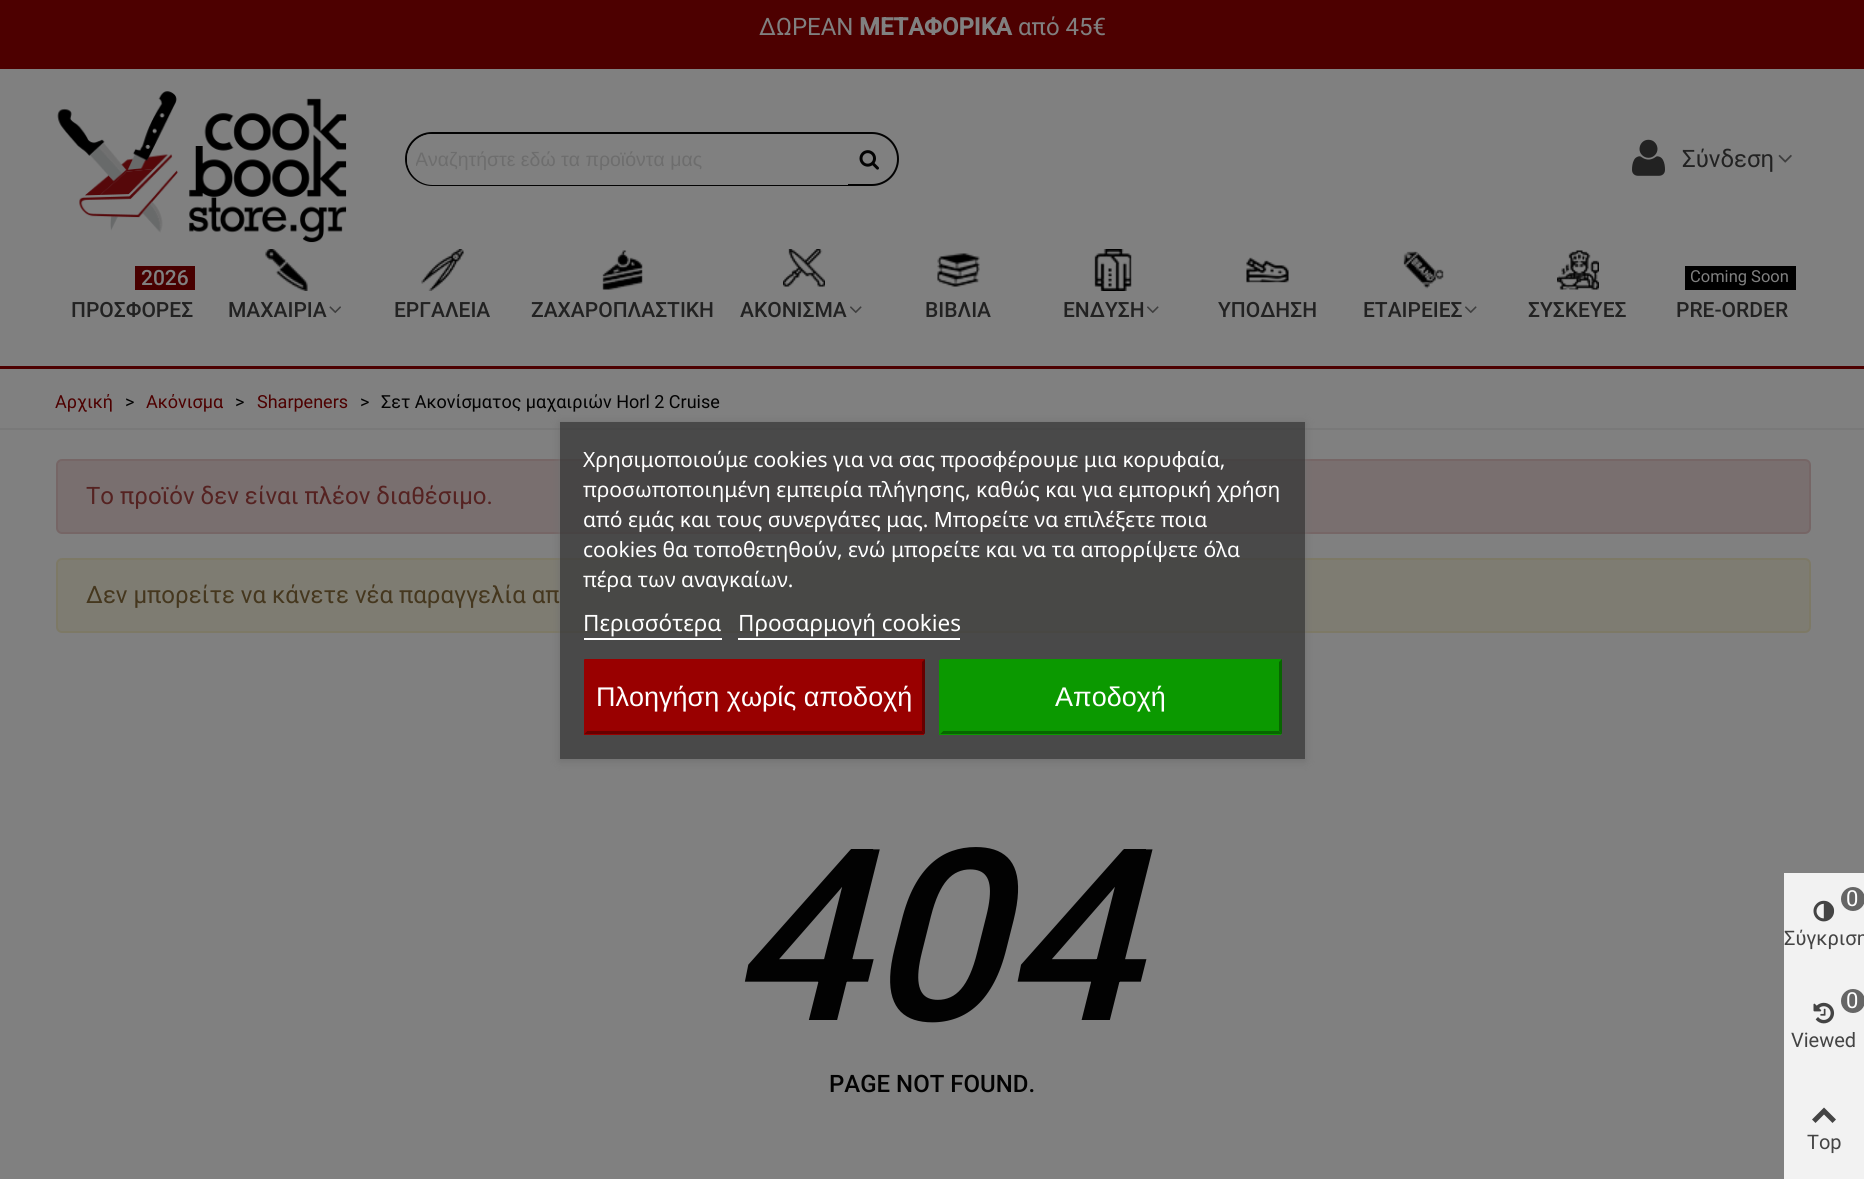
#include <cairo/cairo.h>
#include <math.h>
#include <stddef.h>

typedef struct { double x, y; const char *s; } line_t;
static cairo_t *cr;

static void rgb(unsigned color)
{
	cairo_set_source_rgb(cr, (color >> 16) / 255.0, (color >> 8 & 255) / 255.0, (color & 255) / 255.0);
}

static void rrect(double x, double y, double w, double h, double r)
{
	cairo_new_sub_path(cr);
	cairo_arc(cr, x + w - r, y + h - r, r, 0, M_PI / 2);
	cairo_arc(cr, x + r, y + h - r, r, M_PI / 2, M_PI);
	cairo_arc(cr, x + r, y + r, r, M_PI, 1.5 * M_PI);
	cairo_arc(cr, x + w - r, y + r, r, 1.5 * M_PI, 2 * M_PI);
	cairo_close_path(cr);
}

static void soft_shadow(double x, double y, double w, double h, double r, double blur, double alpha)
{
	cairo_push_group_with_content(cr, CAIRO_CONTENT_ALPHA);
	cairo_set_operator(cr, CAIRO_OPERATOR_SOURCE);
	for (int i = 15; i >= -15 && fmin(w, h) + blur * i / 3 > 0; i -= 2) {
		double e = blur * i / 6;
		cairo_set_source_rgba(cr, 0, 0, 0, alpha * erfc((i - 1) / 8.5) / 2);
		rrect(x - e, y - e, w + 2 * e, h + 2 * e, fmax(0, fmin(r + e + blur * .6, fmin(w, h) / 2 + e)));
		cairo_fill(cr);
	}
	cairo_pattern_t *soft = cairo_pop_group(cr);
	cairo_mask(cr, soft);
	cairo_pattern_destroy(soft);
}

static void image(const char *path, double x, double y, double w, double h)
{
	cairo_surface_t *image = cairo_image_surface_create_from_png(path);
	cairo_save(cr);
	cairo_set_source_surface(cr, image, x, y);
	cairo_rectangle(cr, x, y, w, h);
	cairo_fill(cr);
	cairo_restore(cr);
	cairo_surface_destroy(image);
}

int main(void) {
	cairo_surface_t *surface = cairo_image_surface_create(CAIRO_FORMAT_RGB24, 1864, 1179);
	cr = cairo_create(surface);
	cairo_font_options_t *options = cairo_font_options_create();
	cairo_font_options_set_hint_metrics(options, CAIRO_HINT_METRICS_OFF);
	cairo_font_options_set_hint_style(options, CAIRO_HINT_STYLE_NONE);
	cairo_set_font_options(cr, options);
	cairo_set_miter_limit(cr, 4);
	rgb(0x808080);
	cairo_paint(cr);
	rgb(0x4d0000);
	cairo_rectangle(cr, 0, 0, 1864, 69);
	cairo_fill(cr);
	image("img/1.png", 57, 91, 290, 152);
	rrect(406, 133, 492, 52, 26);
	rgb(0x020202);
	cairo_stroke(cr);
	rgb(0x808080);
	cairo_new_path(cr);
	cairo_move_to(cr, 432.5, 134);
	cairo_line_to(cr, 848, 134);
	cairo_line_to(cr, 848, 185);
	cairo_line_to(cr, 432.5, 185);
	cairo_curve_to(cr, 418.5, 185, 407, 173.5, 407, 159.5);
	cairo_curve_to(cr, 407, 145.5, 418.5, 134, 432.5, 134);
	cairo_close_path(cr);
	cairo_fill(cr);
	image("img/2.png", 859, 150, 20, 20);
	image("img/3.png", 1632, 139, 33, 37);
	image("img/4.png", 1778, 154, 14, 9);
	rgb(0x4d0000);
	cairo_rectangle(cr, 0, 366, 1864, 3);
	cairo_fill(cr);
	rgb(0x480000);
	cairo_rectangle(cr, 135, 266, 60, 24);
	cairo_fill(cr);
	image("img/5.png", 265, 249, 43, 42);
	image("img/6.png", 329, 306, 12, 8);
	image("img/7.png", 421, 249, 43, 42);
	image("img/8.png", 602, 250, 41, 40);
	image("img/9.png", 783, 249, 42, 38);
	image("img/10.png", 850, 306, 12, 8);
	image("img/11.png", 937, 253, 43, 34);
	image("img/12.png", 1094, 249, 38, 42);
	image("img/10.png", 1147, 306, 12, 8);
	image("img/13.png", 1246, 257, 43, 26);
	image("img/14.png", 1403, 251, 41, 38);
	image("img/10.png", 1465, 306, 12, 8);
	image("img/15.png", 1557, 250, 42, 40);
	rgb(0x000000);
	cairo_rectangle(cr, 1685, 266, 111, 24);
	cairo_fill(cr);
	rgb(0x797979);
	cairo_rectangle(cr, 0, 428, 1864, 2);
	cairo_fill(cr);
	rgb(0x796f6f);
	rrect(57, 460, 1753, 73, 5);
	cairo_fill_preserve(cr);
	rgb(0x766666);
	cairo_stroke(cr);
	rgb(0x7e7c72);
	rrect(57, 559, 1753, 73, 5);
	cairo_fill_preserve(cr);
	rgb(0x7d7966);
	cairo_stroke(cr);
	cairo_save(cr);
	cairo_set_fill_rule(cr, CAIRO_FILL_RULE_EVEN_ODD);
	cairo_new_path(cr);
	cairo_move_to(cr, 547, 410);
	cairo_line_to(cr, 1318, 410);
	cairo_line_to(cr, 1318, 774);
	cairo_line_to(cr, 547, 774);
	cairo_close_path(cr);
	cairo_move_to(cr, 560, 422);
	cairo_line_to(cr, 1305, 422);
	cairo_line_to(cr, 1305, 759);
	cairo_line_to(cr, 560, 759);
	cairo_close_path(cr);
	cairo_clip(cr);
	rgb(0x707070);
	soft_shadow(560, 423, 745, 338, 0, 4, 1);
	cairo_restore(cr);
	cairo_set_source_rgba(cr, 0.231, 0.231, 0.231, 0.8);
	cairo_rectangle(cr, 560, 422, 745, 337);
	cairo_fill(cr);
	rgb(0xffffff);
	cairo_rectangle(cr, 584, 638, 138, 2);
	cairo_fill(cr);
	cairo_rectangle(cr, 738, 638, 222, 2);
	cairo_fill(cr);
	rgb(0x990000);
	cairo_rectangle(cr, 584, 660, 340, 75);
	cairo_fill(cr);
	cairo_new_path(cr);
	cairo_move_to(cr, 584, 659);
	cairo_line_to(cr, 925, 659);
	cairo_line_to(cr, 922, 662);
	cairo_line_to(cr, 587, 662);
	cairo_close_path(cr);
	cairo_fill(cr);
	rgb(0x660000);
	cairo_new_path(cr);
	cairo_move_to(cr, 925, 659);
	cairo_line_to(cr, 925, 734);
	cairo_line_to(cr, 922, 731);
	cairo_line_to(cr, 922, 662);
	cairo_close_path(cr);
	cairo_fill(cr);
	cairo_new_path(cr);
	cairo_move_to(cr, 925, 734);
	cairo_line_to(cr, 584, 734);
	cairo_line_to(cr, 587, 731);
	cairo_line_to(cr, 922, 731);
	cairo_close_path(cr);
	cairo_fill(cr);
	rgb(0x990000);
	cairo_new_path(cr);
	cairo_move_to(cr, 584, 734);
	cairo_line_to(cr, 584, 659);
	cairo_line_to(cr, 587, 662);
	cairo_line_to(cr, 587, 731);
	cairo_close_path(cr);
	cairo_fill(cr);
	rgb(0x0b9900);
	cairo_rectangle(cr, 939, 660, 342, 75);
	cairo_fill(cr);
	cairo_new_path(cr);
	cairo_move_to(cr, 940, 659);
	cairo_line_to(cr, 1282, 659);
	cairo_line_to(cr, 1279, 662);
	cairo_line_to(cr, 943, 662);
	cairo_close_path(cr);
	cairo_fill(cr);
	rgb(0x076600);
	cairo_new_path(cr);
	cairo_move_to(cr, 1282, 659);
	cairo_line_to(cr, 1282, 734);
	cairo_line_to(cr, 1279, 731);
	cairo_line_to(cr, 1279, 662);
	cairo_close_path(cr);
	cairo_fill(cr);
	cairo_new_path(cr);
	cairo_move_to(cr, 1282, 734);
	cairo_line_to(cr, 940, 734);
	cairo_line_to(cr, 943, 731);
	cairo_line_to(cr, 1279, 731);
	cairo_close_path(cr);
	cairo_fill(cr);
	rgb(0x0b9900);
	cairo_new_path(cr);
	cairo_move_to(cr, 940, 734);
	cairo_line_to(cr, 940, 659);
	cairo_line_to(cr, 943, 662);
	cairo_line_to(cr, 943, 731);
	cairo_close_path(cr);
	cairo_fill(cr);
	rgb(0xf2f2f2);
	cairo_rectangle(cr, 1784, 873, 80, 306);
	cairo_fill(cr);
	image("img/16.png", 1813, 900, 22, 22);
	rgb(0x666666);
	cairo_arc(cr, 1853, 899, 12, 0, 2 * M_PI);
	cairo_fill(cr);
	image("img/17.png", 1813, 1002, 22, 22);
	cairo_arc(cr, 1853, 1001, 12, 0, 2 * M_PI);
	cairo_fill(cr);
	rgb(0x444444);
	cairo_new_path(cr);
	cairo_move_to(cr, 1812, 1119.5);
	cairo_line_to(cr, 1824, 1107.5);
	cairo_line_to(cr, 1836, 1119.5);
	cairo_line_to(cr, 1832.5, 1123);
	cairo_line_to(cr, 1824, 1114.5);
	cairo_line_to(cr, 1815.5, 1123);
	cairo_close_path(cr);
	cairo_fill(cr);
	cairo_select_font_face(cr, "Roboto", CAIRO_FONT_SLANT_NORMAL, CAIRO_FONT_WEIGHT_NORMAL);
	cairo_set_font_size(cr, 24);
	rgb(0x808080);
	cairo_move_to(cr, 759, 35);
	cairo_show_text(cr, "ΔΩΡΕΑΝ");
	cairo_select_font_face(cr, "Roboto", CAIRO_FONT_SLANT_NORMAL, CAIRO_FONT_WEIGHT_BOLD);
	cairo_move_to(cr, 859, 35);
	cairo_show_text(cr, "ΜΕΤΑΦΟΡΙΚΑ");
	cairo_select_font_face(cr, "Roboto", CAIRO_FONT_SLANT_NORMAL, CAIRO_FONT_WEIGHT_NORMAL);
	cairo_move_to(cr, 1018, 35);
	cairo_show_text(cr, "από 45€");
	cairo_save(cr);
	cairo_rectangle(cr, 416, 149, 423, 22);
	cairo_clip(cr);
	cairo_select_font_face(cr, "Liberation Sans", CAIRO_FONT_SLANT_NORMAL, CAIRO_FONT_WEIGHT_NORMAL);
	cairo_set_font_size(cr, 19.5);
	rgb(0x6d6d6d);
	cairo_move_to(cr, 415, 166);
	cairo_show_text(cr, "Αναζητήστε εδώ τα προϊόντα μας");
	cairo_restore(cr);
	rgb(0x222222);
	cairo_move_to(cr, 1682, 167);
	cairo_show_text(cr, "Σύνδεση");
	cairo_select_font_face(cr, "Roboto Medium", CAIRO_FONT_SLANT_NORMAL, CAIRO_FONT_WEIGHT_NORMAL);
	cairo_set_font_size(cr, 21);
	rgb(0x808080);
	cairo_move_to(cr, 141, 285);
	cairo_show_text(cr, "2026");
	rgb(0x222222);
	{
		static const line_t items[] = {
			{71, 317, "ΠΡΟΣΦΟΡΕΣ"},
			{228, 317, "ΜΑΧΑΙΡΙΑ"},
			{394, 317, "ΕΡΓΑΛΕΙΑ"},
			{531, 317, "ΖΑΧΑΡΟΠΛΑΣΤΙΚΗ"},
			{740, 317, "ΑΚΟΝΙΣΜΑ"},
			{925, 317, "ΒΙΒΛΙΑ"},
			{1063, 317, "ΕΝΔΥΣΗ"},
			{1218, 317, "ΥΠΟΔΗΣΗ"},
			{1363, 317, "ΕΤΑΙΡΕΙΕΣ"},
			{1528, 317, "ΣΥΣΚΕΥΕΣ"},
		};
		for (size_t i = 0; i < sizeof items / sizeof *items; i++) {
			cairo_move_to(cr, items[i].x, items[i].y);
			cairo_show_text(cr, items[i].s);
		}
	}
	cairo_select_font_face(cr, "Roboto", CAIRO_FONT_SLANT_NORMAL, CAIRO_FONT_WEIGHT_NORMAL);
	cairo_set_font_size(cr, 16.5);
	rgb(0x808080);
	cairo_move_to(cr, 1690, 282);
	cairo_show_text(cr, "Coming Soon");
	cairo_select_font_face(cr, "Roboto Medium", CAIRO_FONT_SLANT_NORMAL, CAIRO_FONT_WEIGHT_NORMAL);
	cairo_set_font_size(cr, 21);
	rgb(0x222222);
	cairo_move_to(cr, 1676, 317);
	cairo_show_text(cr, "PRE-ORDER");
	cairo_select_font_face(cr, "Roboto", CAIRO_FONT_SLANT_NORMAL, CAIRO_FONT_WEIGHT_NORMAL);
	cairo_set_font_size(cr, 18);
	rgb(0x4d0000);
	cairo_move_to(cr, 55, 408);
	cairo_show_text(cr, "Αρχική");
	rgb(0x020202);
	cairo_move_to(cr, 125, 408);
	cairo_show_text(cr, ">");
	rgb(0x4d0000);
	cairo_move_to(cr, 146, 408);
	cairo_show_text(cr, "Ακόνισμα");
	rgb(0x020202);
	cairo_move_to(cr, 235, 408);
	cairo_show_text(cr, ">");
	rgb(0x4d0000);
	cairo_move_to(cr, 257, 408);
	cairo_show_text(cr, "Sharpeners");
	rgb(0x020202);
	cairo_move_to(cr, 360, 408);
	cairo_show_text(cr, ">");
	cairo_move_to(cr, 381, 408);
	cairo_show_text(cr, "Σετ Ακονίσματος μαχαιριών Horl 2 Cruise");
	cairo_set_font_size(cr, 24);
	rgb(0x552221);
	cairo_move_to(cr, 86, 504);
	cairo_show_text(cr, "Το προϊόν δεν είναι πλέον διαθέσιμο.");
	rgb(0x45371e);
	cairo_move_to(cr, 86, 603);
	cairo_show_text(cr, "Δεν μπορείτε να κάνετε νέα παραγγελία απ");
	cairo_select_font_face(cr, "Noto Sans", CAIRO_FONT_SLANT_NORMAL, CAIRO_FONT_WEIGHT_NORMAL);
	cairo_set_font_size(cr, 21);
	rgb(0xffffff);
	{
		static const line_t items[] = {
			{583, 467, "Χρησιμοποιούμε cookies για να σας προσφέρουμε μια κορυφαία,"},
			{583, 497, "προσωποποιημένη εμπειρία πλήγησης, καθώς και για εμπορική χρήση"},
			{583, 527, "από εμάς και τους συνεργάτες μας. Μπορείτε να επιλέξετε ποια"},
			{583, 557, "cookies θα τοποθετηθούν, ενώ μπορείτε και να τα απορρίψετε όλα"},
			{583, 587, "πέρα των αναγκαίων."},
		};
		for (size_t i = 0; i < sizeof items / sizeof *items; i++) {
			cairo_move_to(cr, items[i].x, items[i].y);
			cairo_show_text(cr, items[i].s);
		}
	}
	cairo_set_font_size(cr, 22.5);
	cairo_move_to(cr, 583, 631);
	cairo_show_text(cr, "Περισσότερα");
	cairo_move_to(cr, 738, 631);
	cairo_show_text(cr, "Προσαρμογή cookies");
	cairo_select_font_face(cr, "Liberation Sans", CAIRO_FONT_SLANT_NORMAL, CAIRO_FONT_WEIGHT_NORMAL);
	cairo_set_font_size(cr, 27);
	cairo_move_to(cr, 596, 706);
	cairo_show_text(cr, "Πλοηγήση χωρίς αποδοχή");
	cairo_move_to(cr, 1055, 706);
	cairo_show_text(cr, "Αποδοχή");
	cairo_select_font_face(cr, "Roboto Medium", CAIRO_FONT_SLANT_ITALIC, CAIRO_FONT_WEIGHT_NORMAL);
	cairo_set_font_size(cr, 240);
	rgb(0x020202);
	cairo_move_to(cr, 728, 1020);
	cairo_show_text(cr, "404");
	cairo_select_font_face(cr, "Roboto Medium", CAIRO_FONT_SLANT_NORMAL, CAIRO_FONT_WEIGHT_NORMAL);
	cairo_set_font_size(cr, 24);
	cairo_move_to(cr, 829, 1092);
	cairo_show_text(cr, "PAGE NOT FOUND.");
	cairo_select_font_face(cr, "Roboto", CAIRO_FONT_SLANT_NORMAL, CAIRO_FONT_WEIGHT_NORMAL);
	cairo_set_font_size(cr, 22);
	rgb(0xffffff);
	cairo_move_to(cr, 1846, 906);
	cairo_show_text(cr, "0");
	cairo_set_font_size(cr, 20);
	rgb(0x444444);
	cairo_move_to(cr, 1784, 945);
	cairo_show_text(cr, "Σύγκριση");
	cairo_set_font_size(cr, 22);
	rgb(0xffffff);
	cairo_move_to(cr, 1846, 1008);
	cairo_show_text(cr, "0");
	cairo_set_font_size(cr, 20);
	rgb(0x444444);
	cairo_move_to(cr, 1791, 1047);
	cairo_show_text(cr, "Viewed");
	cairo_move_to(cr, 1807, 1149);
	cairo_show_text(cr, "Top");
	cairo_surface_write_to_png(surface, "page.png");
	cairo_font_options_destroy(options);
	cairo_destroy(cr);
	cairo_surface_destroy(surface);
	return 0;
}
